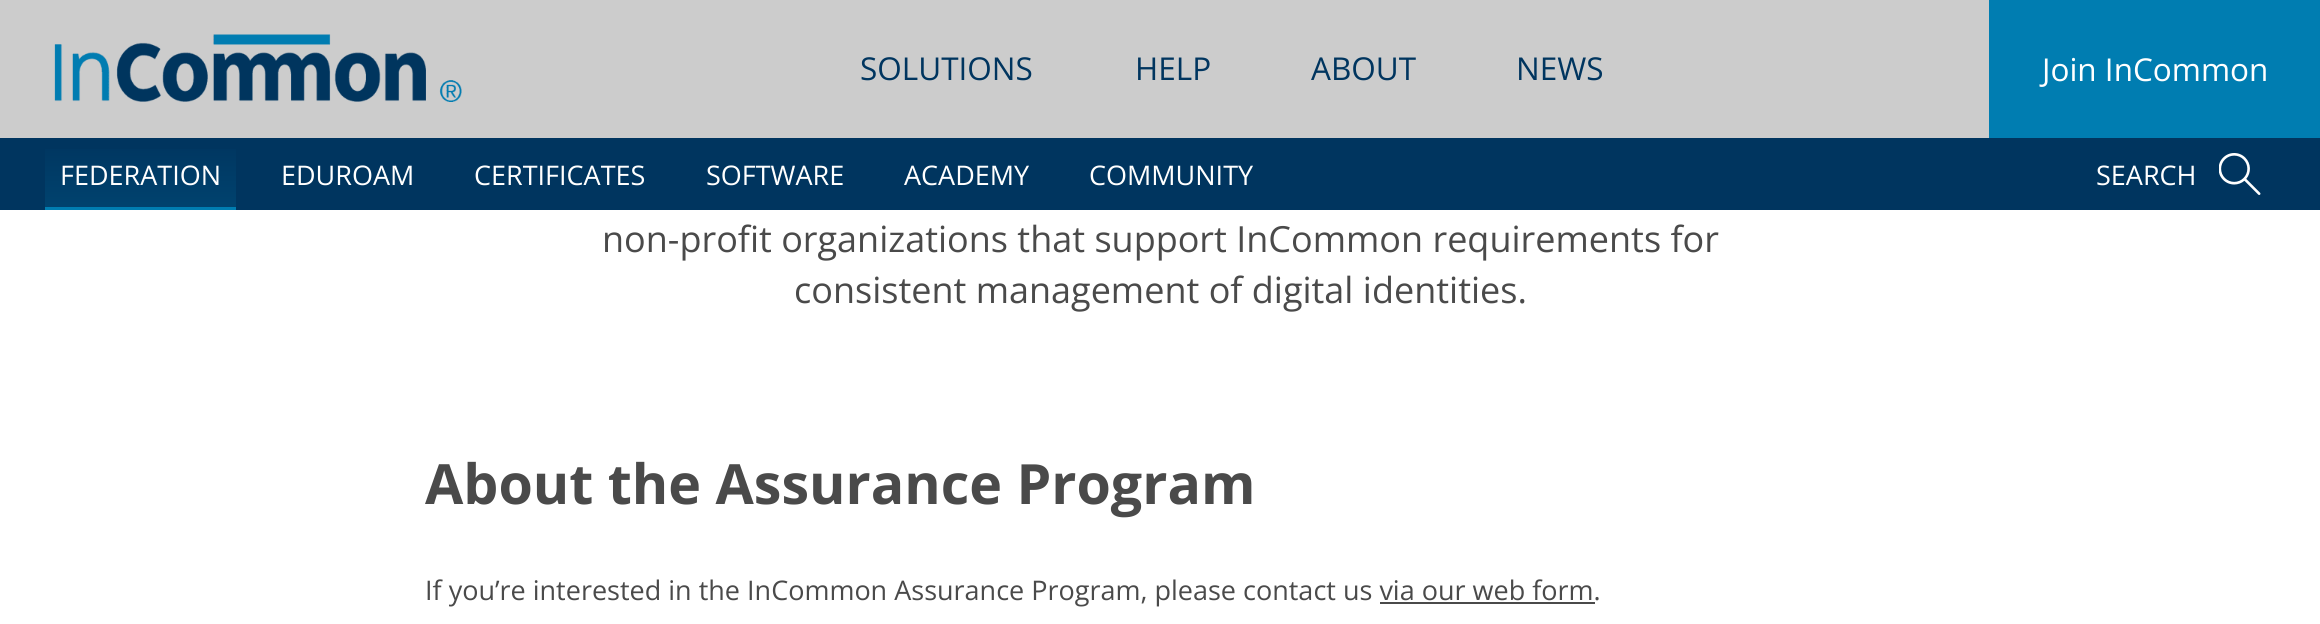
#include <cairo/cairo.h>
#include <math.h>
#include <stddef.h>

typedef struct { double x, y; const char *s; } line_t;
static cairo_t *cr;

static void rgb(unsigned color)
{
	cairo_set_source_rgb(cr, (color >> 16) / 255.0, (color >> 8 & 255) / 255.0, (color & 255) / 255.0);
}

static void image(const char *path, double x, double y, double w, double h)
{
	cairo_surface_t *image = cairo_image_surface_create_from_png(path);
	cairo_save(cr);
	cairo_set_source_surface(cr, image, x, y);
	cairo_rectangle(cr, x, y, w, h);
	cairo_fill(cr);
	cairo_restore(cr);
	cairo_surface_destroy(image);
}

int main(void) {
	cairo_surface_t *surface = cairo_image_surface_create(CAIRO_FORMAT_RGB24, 2320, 624);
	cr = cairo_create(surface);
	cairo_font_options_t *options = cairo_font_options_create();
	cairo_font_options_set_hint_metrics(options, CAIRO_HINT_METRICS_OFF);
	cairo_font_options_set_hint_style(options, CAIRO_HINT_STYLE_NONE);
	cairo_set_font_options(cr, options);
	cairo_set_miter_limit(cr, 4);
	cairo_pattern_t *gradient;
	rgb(0xffffff);
	cairo_paint(cr);
	rgb(0xcccccc);
	cairo_rectangle(cr, 0, 0, 1989, 138);
	cairo_fill(cr);
	image("img/1.png", 54, 34, 408, 68);
	rgb(0x007db1);
	cairo_rectangle(cr, 1989, 0, 331, 138);
	cairo_fill(cr);
	rgb(0x00355f);
	cairo_rectangle(cr, 0, 138, 2320, 72);
	cairo_fill(cr);
	gradient = cairo_pattern_create_linear(140, 138, 140, 210);
	cairo_pattern_add_color_stop_rgba(gradient, 0, 0, 0.208, 0.373, 1);
	cairo_pattern_add_color_stop_rgba(gradient, 1, 0, 0.263, 0.435, 1);
	cairo_set_source(cr, gradient);
	cairo_pattern_destroy(gradient);
	cairo_rectangle(cr, 45, 149, 191, 58);
	cairo_fill(cr);
	rgb(0x007db1);
	cairo_rectangle(cr, 45, 207, 191, 3);
	cairo_fill(cr);
	image("img/2.png", 2219, 153, 42, 42);
	rgb(0x4a4a4a);
	cairo_rectangle(cr, 1380, 602, 215, 2);
	cairo_fill(cr);
	cairo_select_font_face(cr, "Open Sans", CAIRO_FONT_SLANT_NORMAL, CAIRO_FONT_WEIGHT_NORMAL);
	cairo_set_font_size(cr, 31.5);
	rgb(0x00355f);
	{
		static const line_t items[] = {
			{860, 80, "SOLUTIONS"},
			{1135, 80, "HELP"},
			{1311, 80, "ABOUT"},
			{1516, 80, "NEWS"},
		};
		for (size_t i = 0; i < sizeof items / sizeof *items; i++) {
			cairo_move_to(cr, items[i].x, items[i].y);
			cairo_show_text(cr, items[i].s);
		}
	}
	rgb(0xffffff);
	cairo_move_to(cr, 2042, 81);
	cairo_show_text(cr, "Join InCommon");
	cairo_set_font_size(cr, 27);
	{
		static const line_t items[] = {
			{60, 185, "FEDERATION"},
			{281, 185, "EDUROAM"},
			{474, 185, "CERTIFICATES"},
			{706, 185, "SOFTWARE"},
			{904, 185, "ACADEMY"},
			{1089, 185, "COMMUNITY"},
			{2096, 185, "SEARCH"},
		};
		for (size_t i = 0; i < sizeof items / sizeof *items; i++) {
			cairo_move_to(cr, items[i].x, items[i].y);
			cairo_show_text(cr, items[i].s);
		}
	}
	cairo_set_font_size(cr, 36);
	rgb(0x4a4a4a);
	cairo_move_to(cr, 602, 252);
	cairo_show_text(cr, "non-profit organizations that support InCommon requirements for");
	cairo_move_to(cr, 794, 303);
	cairo_show_text(cr, "consistent management of digital identities.");
	cairo_select_font_face(cr, "Open Sans", CAIRO_FONT_SLANT_NORMAL, CAIRO_FONT_WEIGHT_BOLD);
	cairo_set_font_size(cr, 55.5);
	cairo_move_to(cr, 425, 504);
	cairo_show_text(cr, "About the Assurance Program");
	cairo_select_font_face(cr, "Open Sans", CAIRO_FONT_SLANT_NORMAL, CAIRO_FONT_WEIGHT_NORMAL);
	cairo_set_font_size(cr, 27);
	cairo_move_to(cr, 425, 600);
	cairo_show_text(cr, "If you’re interested in the InCommon Assurance Program, please contact us via our web form.");
	cairo_surface_write_to_png(surface, "page.png");
	cairo_font_options_destroy(options);
	cairo_destroy(cr);
	cairo_surface_destroy(surface);
	return 0;
}
